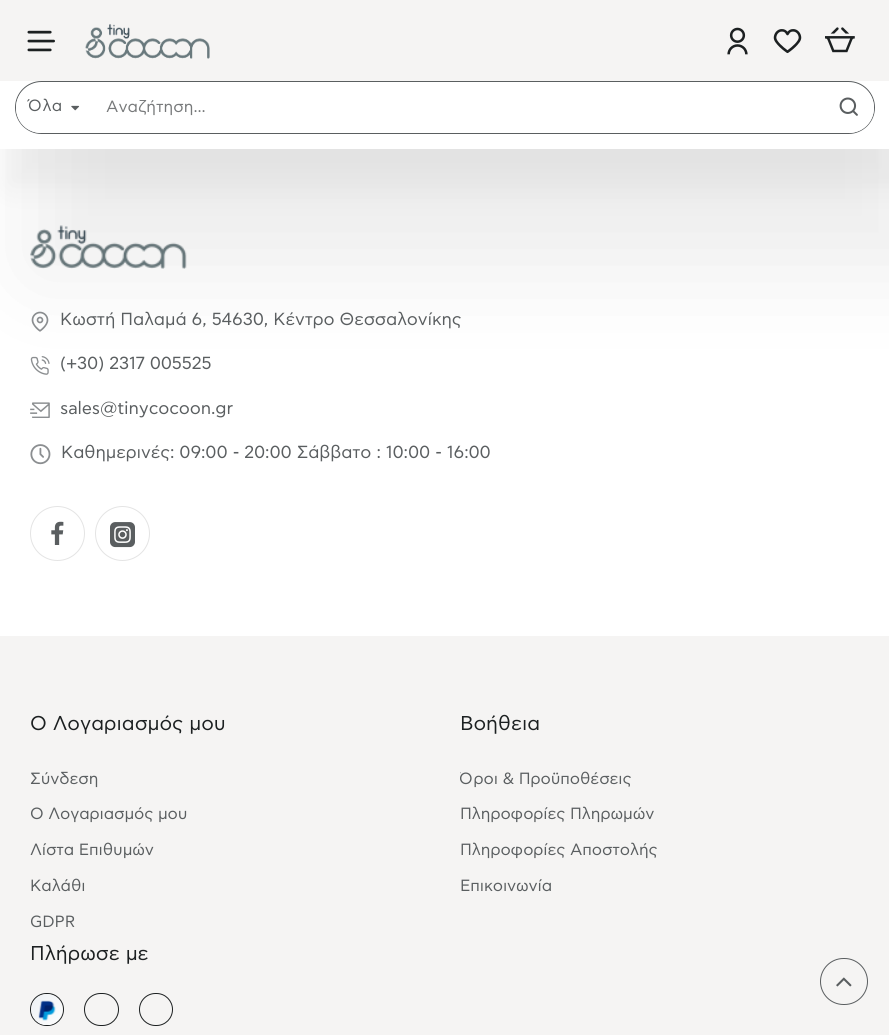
#include <cairo/cairo.h>
#include <math.h>
#include <stddef.h>

typedef struct { double x, y; const char *s; } line_t;
static cairo_t *cr;

static void rgb(unsigned color)
{
	cairo_set_source_rgb(cr, (color >> 16) / 255.0, (color >> 8 & 255) / 255.0, (color & 255) / 255.0);
}

static void tracked(double x, double y, const char *s, double letter, double word)
{
	cairo_move_to(cr, x, y);
	while (*s) {
		char ch[5] = {0};
		int n = 0;
		do ch[n++] = *s++; while ((*s & 0xC0) == 0x80);
		cairo_show_text(cr, ch);
		cairo_rel_move_to(cr, letter + word * (*ch == ' '), 0);
	}
}

static void rrect(double x, double y, double w, double h, double r)
{
	cairo_new_sub_path(cr);
	cairo_arc(cr, x + w - r, y + h - r, r, 0, M_PI / 2);
	cairo_arc(cr, x + r, y + h - r, r, M_PI / 2, M_PI);
	cairo_arc(cr, x + r, y + r, r, M_PI, 1.5 * M_PI);
	cairo_arc(cr, x + w - r, y + r, r, 1.5 * M_PI, 2 * M_PI);
	cairo_close_path(cr);
}

static void soft_shadow(double x, double y, double w, double h, double r, double blur, double alpha)
{
	cairo_push_group_with_content(cr, CAIRO_CONTENT_ALPHA);
	cairo_set_operator(cr, CAIRO_OPERATOR_SOURCE);
	for (int i = 15; i >= -15 && fmin(w, h) + blur * i / 3 > 0; i -= 2) {
		double e = blur * i / 6;
		cairo_set_source_rgba(cr, 0, 0, 0, alpha * erfc((i - 1) / 8.5) / 2);
		rrect(x - e, y - e, w + 2 * e, h + 2 * e, fmax(0, fmin(r + e + blur * .6, fmin(w, h) / 2 + e)));
		cairo_fill(cr);
	}
	cairo_pattern_t *soft = cairo_pop_group(cr);
	cairo_mask(cr, soft);
	cairo_pattern_destroy(soft);
}

static void image(const char *path, double x, double y, double w, double h)
{
	cairo_surface_t *image = cairo_image_surface_create_from_png(path);
	cairo_save(cr);
	cairo_set_source_surface(cr, image, x, y);
	cairo_rectangle(cr, x, y, w, h);
	cairo_fill(cr);
	cairo_restore(cr);
	cairo_surface_destroy(image);
}

int main(void) {
	cairo_surface_t *surface = cairo_image_surface_create(CAIRO_FORMAT_RGB24, 889, 1035);
	cr = cairo_create(surface);
	cairo_font_options_t *options = cairo_font_options_create();
	cairo_font_options_set_hint_metrics(options, CAIRO_HINT_METRICS_OFF);
	cairo_font_options_set_hint_style(options, CAIRO_HINT_STYLE_NONE);
	cairo_set_font_options(cr, options);
	cairo_set_miter_limit(cr, 4);
	rgb(0xffffff);
	cairo_paint(cr);
	image("img/8.png", 30, 225, 157, 44);
	image("img/9.png", 31, 311, 18, 21);
	image("img/10.png", 30, 356, 20, 19);
	image("img/11.png", 30, 402, 20, 16);
	rgb(0x000000);
	soft_shadow(30, 38, 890, 236, 0, 50, 0.07);
	soft_shadow(9, -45, 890, 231, 0, 15, 0.05);
	rgb(0xf5f4f3);
	cairo_rectangle(cr, 0, 0, 889, 81);
	cairo_fill(cr);
	image("img/1.png", 27, 30, 28, 22);
	image("img/2.png", 85, 24, 125, 35);
	image("img/3.png", 727, 27, 21, 28);
	image("img/4.png", 773, 29, 29, 25);
	image("img/5.png", 825, 27, 30, 26);
	rgb(0xffffff);
	cairo_rectangle(cr, 0, 81, 889, 68);
	cairo_fill(cr);
	rrect(15.5, 81.5, 859, 52, 26);
	rgb(0x5a5e60);
	cairo_set_line_width(cr, 1);
	cairo_stroke(cr);
	rgb(0xffffff);
	cairo_new_path(cr);
	cairo_move_to(cr, 41, 83);
	cairo_line_to(cr, 91, 83);
	cairo_line_to(cr, 91, 133);
	cairo_line_to(cr, 41, 133);
	cairo_curve_to(cr, 27, 133, 16, 122, 16, 108);
	cairo_curve_to(cr, 16, 94, 27, 83, 41, 83);
	cairo_close_path(cr);
	cairo_fill(cr);
	image("img/6.png", 71, 105, 9, 6);
	cairo_new_path(cr);
	cairo_move_to(cr, 824, 83);
	cairo_line_to(cr, 849, 83);
	cairo_curve_to(cr, 863, 83, 874, 94, 874, 108);
	cairo_curve_to(cr, 874, 122, 863, 133, 849, 133);
	cairo_line_to(cr, 824, 133);
	cairo_close_path(cr);
	cairo_fill(cr);
	image("img/7.png", 839, 97, 19, 19);
	image("img/12.png", 30, 444, 21, 21);
	cairo_arc(cr, 57.5, 533.5, 27, 0, 2 * M_PI);
	rgb(0xe4e4e4);
	cairo_stroke(cr);
	image("img/13.png", 51, 521, 13, 24);
	cairo_arc(cr, 122.5, 533.5, 27, 0, 2 * M_PI);
	cairo_stroke(cr);
	image("img/14.png", 110, 522, 25, 26);
	rgb(0xf5f4f3);
	cairo_rectangle(cr, 0, 636, 889, 399);
	cairo_fill(cr);
	rrect(30.5, 993.5, 33, 32, 16);
	rgb(0x1c2021);
	cairo_stroke(cr);
	image("img/15.png", 31, 994, 32, 31);
	rrect(84.5, 993.5, 34, 32, 16);
	cairo_stroke(cr);
	rrect(139.5, 993.5, 33, 32, 16);
	cairo_stroke(cr);
	rrect(820.5, 958.5, 47, 46, 23);
	rgb(0x5a5e60);
	cairo_stroke(cr);
	image("img/16.png", 836, 977, 16, 10);
	cairo_select_font_face(cr, "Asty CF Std", CAIRO_FONT_SLANT_NORMAL, CAIRO_FONT_WEIGHT_NORMAL);
	cairo_set_font_size(cr, 16.25);
	cairo_move_to(cr, 29, 111);
	cairo_show_text(cr, "Όλα");
	cairo_save(cr);
	cairo_rectangle(cr, 106, 100, 698, 16);
	cairo_clip(cr);
	rgb(0x77797a);
	cairo_move_to(cr, 106, 112);
	cairo_show_text(cr, "Αναζήτηση...");
	cairo_restore(cr);
	cairo_set_font_size(cr, 17.5);
	{
		static const line_t items[] = {
			{60, 325, "Κωστή Παλαμά 6, 54630, Κέντρο Θεσσαλονίκης"},
			{60, 369, "(+30) 2317 005525"},
			{60, 414, "sales@tinycocoon.gr"},
			{61, 458, "Καθημερινές: 09:00 - 20:00 Σάββατο : 10:00 - 16:00"},
		};
		for (size_t i = 0; i < sizeof items / sizeof *items; i++) {
			tracked(items[i].x, items[i].y, items[i].s, -0.1, 0);
		}
	}
	cairo_set_font_size(cr, 20);
	rgb(0x1c2021);
	cairo_move_to(cr, 30, 730);
	cairo_show_text(cr, "Ο Λογαριασμός μου");
	cairo_set_font_size(cr, 16.25);
	rgb(0x5a5e60);
	{
		static const line_t items[] = {
			{30, 784, "Σύνδεση"},
			{30, 819, "Ο Λογαριασμός μου"},
			{30, 855, "Λίστα Επιθυμών"},
			{30, 891, "Καλάθι"},
			{30, 927, "GDPR"},
		};
		for (size_t i = 0; i < sizeof items / sizeof *items; i++) {
			tracked(items[i].x, items[i].y, items[i].s, -0.1, 0);
		}
	}
	cairo_set_font_size(cr, 20);
	rgb(0x1c2021);
	cairo_move_to(cr, 460, 730);
	cairo_show_text(cr, "Βοήθεια");
	cairo_save(cr);
	cairo_rectangle(cr, 460, 770, 171, 21);
	cairo_clip(cr);
	cairo_set_font_size(cr, 16.25);
	rgb(0x5a5e60);
	tracked(460, 784, "Όροι & Προϋποθέσεις", -0.1, 0);
	cairo_restore(cr);
	cairo_set_font_size(cr, 16.25);
	rgb(0x5a5e60);
	{
		static const line_t items[] = {
			{460, 819, "Πληροφορίες Πληρωμών"},
			{460, 855, "Πληροφορίες Αποστολής"},
			{460, 891, "Επικοινωνία"},
		};
		for (size_t i = 0; i < sizeof items / sizeof *items; i++) {
			tracked(items[i].x, items[i].y, items[i].s, -0.1, 0);
		}
	}
	cairo_set_font_size(cr, 20);
	rgb(0x1c2021);
	cairo_move_to(cr, 30, 960);
	cairo_show_text(cr, "Πλήρωσε με");
	cairo_surface_write_to_png(surface, "page.png");
	cairo_font_options_destroy(options);
	cairo_destroy(cr);
	cairo_surface_destroy(surface);
	return 0;
}
